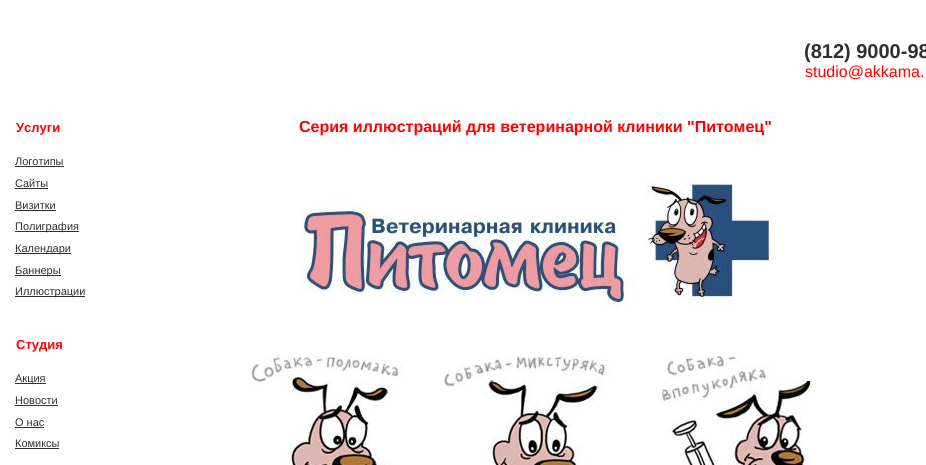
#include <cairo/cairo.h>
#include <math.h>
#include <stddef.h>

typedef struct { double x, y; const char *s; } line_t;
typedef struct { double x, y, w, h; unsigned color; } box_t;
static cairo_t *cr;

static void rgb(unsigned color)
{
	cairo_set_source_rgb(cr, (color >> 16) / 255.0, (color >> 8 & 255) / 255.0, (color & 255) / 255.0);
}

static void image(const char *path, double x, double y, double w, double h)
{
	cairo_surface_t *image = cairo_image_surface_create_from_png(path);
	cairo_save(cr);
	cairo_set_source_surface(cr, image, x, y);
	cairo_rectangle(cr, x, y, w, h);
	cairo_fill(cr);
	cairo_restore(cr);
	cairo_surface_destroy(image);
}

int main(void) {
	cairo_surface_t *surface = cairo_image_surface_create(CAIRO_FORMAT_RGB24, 926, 465);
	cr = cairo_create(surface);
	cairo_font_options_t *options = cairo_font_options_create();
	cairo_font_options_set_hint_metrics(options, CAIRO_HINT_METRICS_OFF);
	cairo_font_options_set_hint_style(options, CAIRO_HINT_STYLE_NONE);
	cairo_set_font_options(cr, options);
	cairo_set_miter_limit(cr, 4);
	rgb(0xffffff);
	cairo_paint(cr);
	{
		static const box_t items[] = {
			{15, 166, 49, 1, 0x303030},
			{15, 188, 33, 1, 0x303030},
			{15, 210, 41, 1, 0x303030},
			{15, 231, 64, 1, 0x303030},
			{15, 253, 56, 1, 0x303030},
			{15, 275, 46, 1, 0x303030},
			{15, 296, 70, 1, 0x303030},
			{15, 383, 31, 1, 0x303030},
			{15, 405, 43, 1, 0x303030},
			{15, 427, 29, 1, 0x303030},
			{15, 448, 44, 1, 0x303030},
		};
		for (size_t i = 0; i < sizeof items / sizeof *items; i++) {
			rgb(items[i].color);
			cairo_rectangle(cr, items[i].x, items[i].y, items[i].w, items[i].h);
			cairo_fill(cr);
		}
	}
	image("img/1.png", 300, 181, 479, 128);
	image("img/2.png", 251, 356, 560, 109);
	cairo_select_font_face(cr, "Liberation Sans", CAIRO_FONT_SLANT_NORMAL, CAIRO_FONT_WEIGHT_BOLD);
	cairo_set_font_size(cr, 20);
	cairo_move_to(cr, 804, 58);
	cairo_show_text(cr, "(812) 9000-98");
	cairo_select_font_face(cr, "Liberation Sans", CAIRO_FONT_SLANT_NORMAL, CAIRO_FONT_WEIGHT_NORMAL);
	cairo_set_font_size(cr, 16);
	rgb(0xff0000);
	cairo_move_to(cr, 805, 77);
	cairo_show_text(cr, "studio@akkama.");
	cairo_select_font_face(cr, "Liberation Sans", CAIRO_FONT_SLANT_NORMAL, CAIRO_FONT_WEIGHT_BOLD);
	cairo_set_font_size(cr, 13);
	cairo_move_to(cr, 16, 132);
	cairo_show_text(cr, "Услуги");
	cairo_select_font_face(cr, "Liberation Sans", CAIRO_FONT_SLANT_NORMAL, CAIRO_FONT_WEIGHT_NORMAL);
	cairo_set_font_size(cr, 11);
	rgb(0x303030);
	{
		static const line_t items[] = {
			{15, 165, "Логотипы"},
			{15, 187, "Сайты"},
			{15, 209, "Визитки"},
			{15, 230, "Полиграфия"},
			{15, 252, "Календари"},
			{15, 274, "Баннеры"},
			{15, 295, "Иллюстрации"},
		};
		for (size_t i = 0; i < sizeof items / sizeof *items; i++) {
			cairo_move_to(cr, items[i].x, items[i].y);
			cairo_show_text(cr, items[i].s);
		}
	}
	cairo_select_font_face(cr, "Liberation Sans", CAIRO_FONT_SLANT_NORMAL, CAIRO_FONT_WEIGHT_BOLD);
	cairo_set_font_size(cr, 13);
	rgb(0xff0000);
	cairo_move_to(cr, 16, 349);
	cairo_show_text(cr, "Студия");
	cairo_select_font_face(cr, "Liberation Sans", CAIRO_FONT_SLANT_NORMAL, CAIRO_FONT_WEIGHT_NORMAL);
	cairo_set_font_size(cr, 11);
	rgb(0x303030);
	{
		static const line_t items[] = {
			{15, 382, "Акция"},
			{15, 404, "Новости"},
			{15, 426, "О нас"},
			{15, 447, "Комиксы"},
		};
		for (size_t i = 0; i < sizeof items / sizeof *items; i++) {
			cairo_move_to(cr, items[i].x, items[i].y);
			cairo_show_text(cr, items[i].s);
		}
	}
	cairo_select_font_face(cr, "Liberation Sans", CAIRO_FONT_SLANT_NORMAL, CAIRO_FONT_WEIGHT_BOLD);
	cairo_set_font_size(cr, 16);
	rgb(0xff0000);
	cairo_move_to(cr, 299, 132);
	cairo_show_text(cr, "Серия иллюстраций для ветеринарной клиники \"Питомец\"");
	cairo_surface_write_to_png(surface, "page.png");
	cairo_font_options_destroy(options);
	cairo_destroy(cr);
	cairo_surface_destroy(surface);
	return 0;
}
